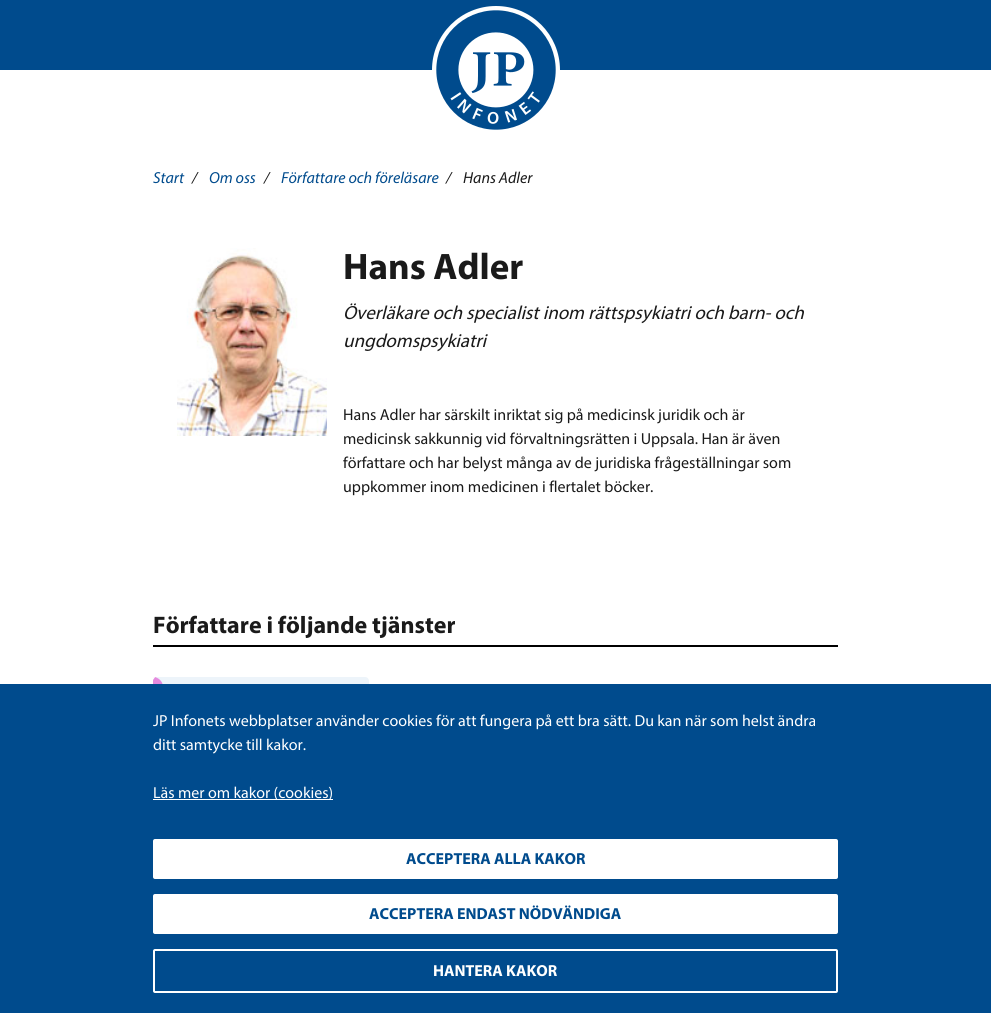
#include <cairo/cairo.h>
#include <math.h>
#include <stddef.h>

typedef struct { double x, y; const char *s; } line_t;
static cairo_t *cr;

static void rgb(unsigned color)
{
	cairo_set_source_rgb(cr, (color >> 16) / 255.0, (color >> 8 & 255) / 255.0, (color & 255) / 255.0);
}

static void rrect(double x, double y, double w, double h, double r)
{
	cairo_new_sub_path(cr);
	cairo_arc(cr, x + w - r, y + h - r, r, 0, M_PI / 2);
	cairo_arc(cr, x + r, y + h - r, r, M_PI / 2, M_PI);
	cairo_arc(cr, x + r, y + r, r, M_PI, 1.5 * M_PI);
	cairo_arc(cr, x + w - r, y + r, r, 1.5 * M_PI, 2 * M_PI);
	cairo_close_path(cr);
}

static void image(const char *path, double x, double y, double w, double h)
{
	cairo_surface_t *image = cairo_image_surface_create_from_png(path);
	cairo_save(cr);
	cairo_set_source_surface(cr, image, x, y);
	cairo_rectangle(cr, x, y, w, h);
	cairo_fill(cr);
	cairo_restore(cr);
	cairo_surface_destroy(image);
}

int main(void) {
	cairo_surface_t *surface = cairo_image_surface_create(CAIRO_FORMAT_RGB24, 991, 1013);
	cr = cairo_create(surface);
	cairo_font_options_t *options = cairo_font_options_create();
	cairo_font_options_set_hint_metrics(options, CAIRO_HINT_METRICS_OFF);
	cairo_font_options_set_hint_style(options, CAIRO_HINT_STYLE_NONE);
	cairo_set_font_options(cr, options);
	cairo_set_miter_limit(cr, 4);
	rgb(0xffffff);
	cairo_paint(cr);
	rgb(0x004b8d);
	cairo_rectangle(cr, 0, 0, 991, 70);
	cairo_fill(cr);
	image("img/1.png", 432, 6, 128, 124);
	image("img/2.png", 177, 248, 150, 188);
	rgb(0x000000);
	cairo_rectangle(cr, 153, 645, 685, 2);
	cairo_fill(cr);
	rgb(0xedf4fa);
	rrect(153, 677, 216, 190, 4);
	cairo_fill(cr);
	rgb(0xe58ade);
	cairo_new_path(cr);
	cairo_move_to(cr, 157, 677);
	cairo_line_to(cr, 153, 677);
	cairo_curve_to(cr, 158.5, 677, 163, 681.5, 163, 687);
	cairo_line_to(cr, 163, 857);
	cairo_curve_to(cr, 163, 862.5, 158.5, 867, 153, 867);
	cairo_line_to(cr, 157, 867);
	cairo_curve_to(cr, 155, 867, 153, 865, 153, 863);
	cairo_line_to(cr, 153, 681);
	cairo_curve_to(cr, 153, 679, 155, 677, 157, 677);
	cairo_close_path(cr);
	cairo_fill(cr);
	rgb(0x004b8d);
	cairo_rectangle(cr, 0, 684, 991, 329);
	cairo_fill(cr);
	rgb(0xffffff);
	cairo_rectangle(cr, 153, 799, 180, 1);
	cairo_fill(cr);
	rrect(153, 839, 685, 40, 2);
	cairo_fill(cr);
	rrect(153, 894, 685, 40, 2);
	cairo_fill(cr);
	rrect(154, 950, 683, 42, 1);
	cairo_stroke(cr);
	cairo_select_font_face(cr, "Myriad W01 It", CAIRO_FONT_SLANT_NORMAL, CAIRO_FONT_WEIGHT_NORMAL);
	cairo_set_font_size(cr, 16);
	rgb(0x004b8d);
	cairo_move_to(cr, 153, 183);
	cairo_show_text(cr, "Start");
	rgb(0x1a1a1a);
	cairo_move_to(cr, 192, 183);
	cairo_show_text(cr, "/");
	rgb(0x004b8d);
	cairo_move_to(cr, 209, 183);
	cairo_show_text(cr, "Om oss");
	rgb(0x1a1a1a);
	cairo_move_to(cr, 264, 183);
	cairo_show_text(cr, "/");
	rgb(0x004b8d);
	cairo_move_to(cr, 281, 183);
	cairo_show_text(cr, "Författare och föreläsare");
	rgb(0x1a1a1a);
	cairo_move_to(cr, 446, 183);
	cairo_show_text(cr, "/");
	cairo_move_to(cr, 463, 183);
	cairo_show_text(cr, "Hans Adler");
	cairo_select_font_face(cr, "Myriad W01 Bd", CAIRO_FONT_SLANT_NORMAL, CAIRO_FONT_WEIGHT_BOLD);
	cairo_set_font_size(cr, 37);
	cairo_move_to(cr, 343, 279);
	cairo_show_text(cr, "Hans Adler");
	cairo_select_font_face(cr, "Myriad", CAIRO_FONT_SLANT_ITALIC, CAIRO_FONT_WEIGHT_NORMAL);
	cairo_set_font_size(cr, 19);
	cairo_move_to(cr, 343, 319);
	cairo_show_text(cr, "Överläkare och specialist inom rättspsykiatri och barn- och");
	cairo_move_to(cr, 343, 347);
	cairo_show_text(cr, "ungdomspsykiatri");
	cairo_select_font_face(cr, "Myriad", CAIRO_FONT_SLANT_NORMAL, CAIRO_FONT_WEIGHT_NORMAL);
	cairo_set_font_size(cr, 16);
	{
		static const line_t items[] = {
			{343, 420, "Hans Adler har särskilt inriktat sig på medicinsk juridik och är"},
			{343, 444, "medicinsk sakkunnig vid förvaltningsrätten i Uppsala. Han är även"},
			{343, 468, "författare och har belyst många av de juridiska frågeställningar som"},
			{343, 492, "uppkommer inom medicinen i flertalet böcker."},
		};
		for (size_t i = 0; i < sizeof items / sizeof *items; i++) {
			cairo_move_to(cr, items[i].x, items[i].y);
			cairo_show_text(cr, items[i].s);
		}
	}
	cairo_select_font_face(cr, "Myriad W01 Bd", CAIRO_FONT_SLANT_NORMAL, CAIRO_FONT_WEIGHT_BOLD);
	cairo_set_font_size(cr, 24);
	cairo_move_to(cr, 153, 633);
	cairo_show_text(cr, "Författare i följande tjänster");
	cairo_select_font_face(cr, "Myriad", CAIRO_FONT_SLANT_NORMAL, CAIRO_FONT_WEIGHT_NORMAL);
	cairo_set_font_size(cr, 16);
	rgb(0xffffff);
	{
		static const line_t items[] = {
			{153, 726, "JP Infonets webbplatser använder cookies för att fungera på ett bra sätt. Du kan när som helst ändra"},
			{153, 750, "ditt samtycke till kakor."},
			{153, 798, "Läs mer om kakor (cookies)"},
		};
		for (size_t i = 0; i < sizeof items / sizeof *items; i++) {
			cairo_move_to(cr, items[i].x, items[i].y);
			cairo_show_text(cr, items[i].s);
		}
	}
	cairo_select_font_face(cr, "Myriad W01 Bd", CAIRO_FONT_SLANT_NORMAL, CAIRO_FONT_WEIGHT_BOLD);
	rgb(0x004b8d);
	cairo_move_to(cr, 406, 864);
	cairo_show_text(cr, "ACCEPTERA ALLA KAKOR");
	cairo_move_to(cr, 369, 919);
	cairo_show_text(cr, "ACCEPTERA ENDAST NÖDVÄNDIGA");
	rgb(0xffffff);
	cairo_move_to(cr, 433, 976);
	cairo_show_text(cr, "HANTERA KAKOR");
	cairo_surface_write_to_png(surface, "page.png");
	cairo_font_options_destroy(options);
	cairo_destroy(cr);
	cairo_surface_destroy(surface);
	return 0;
}
